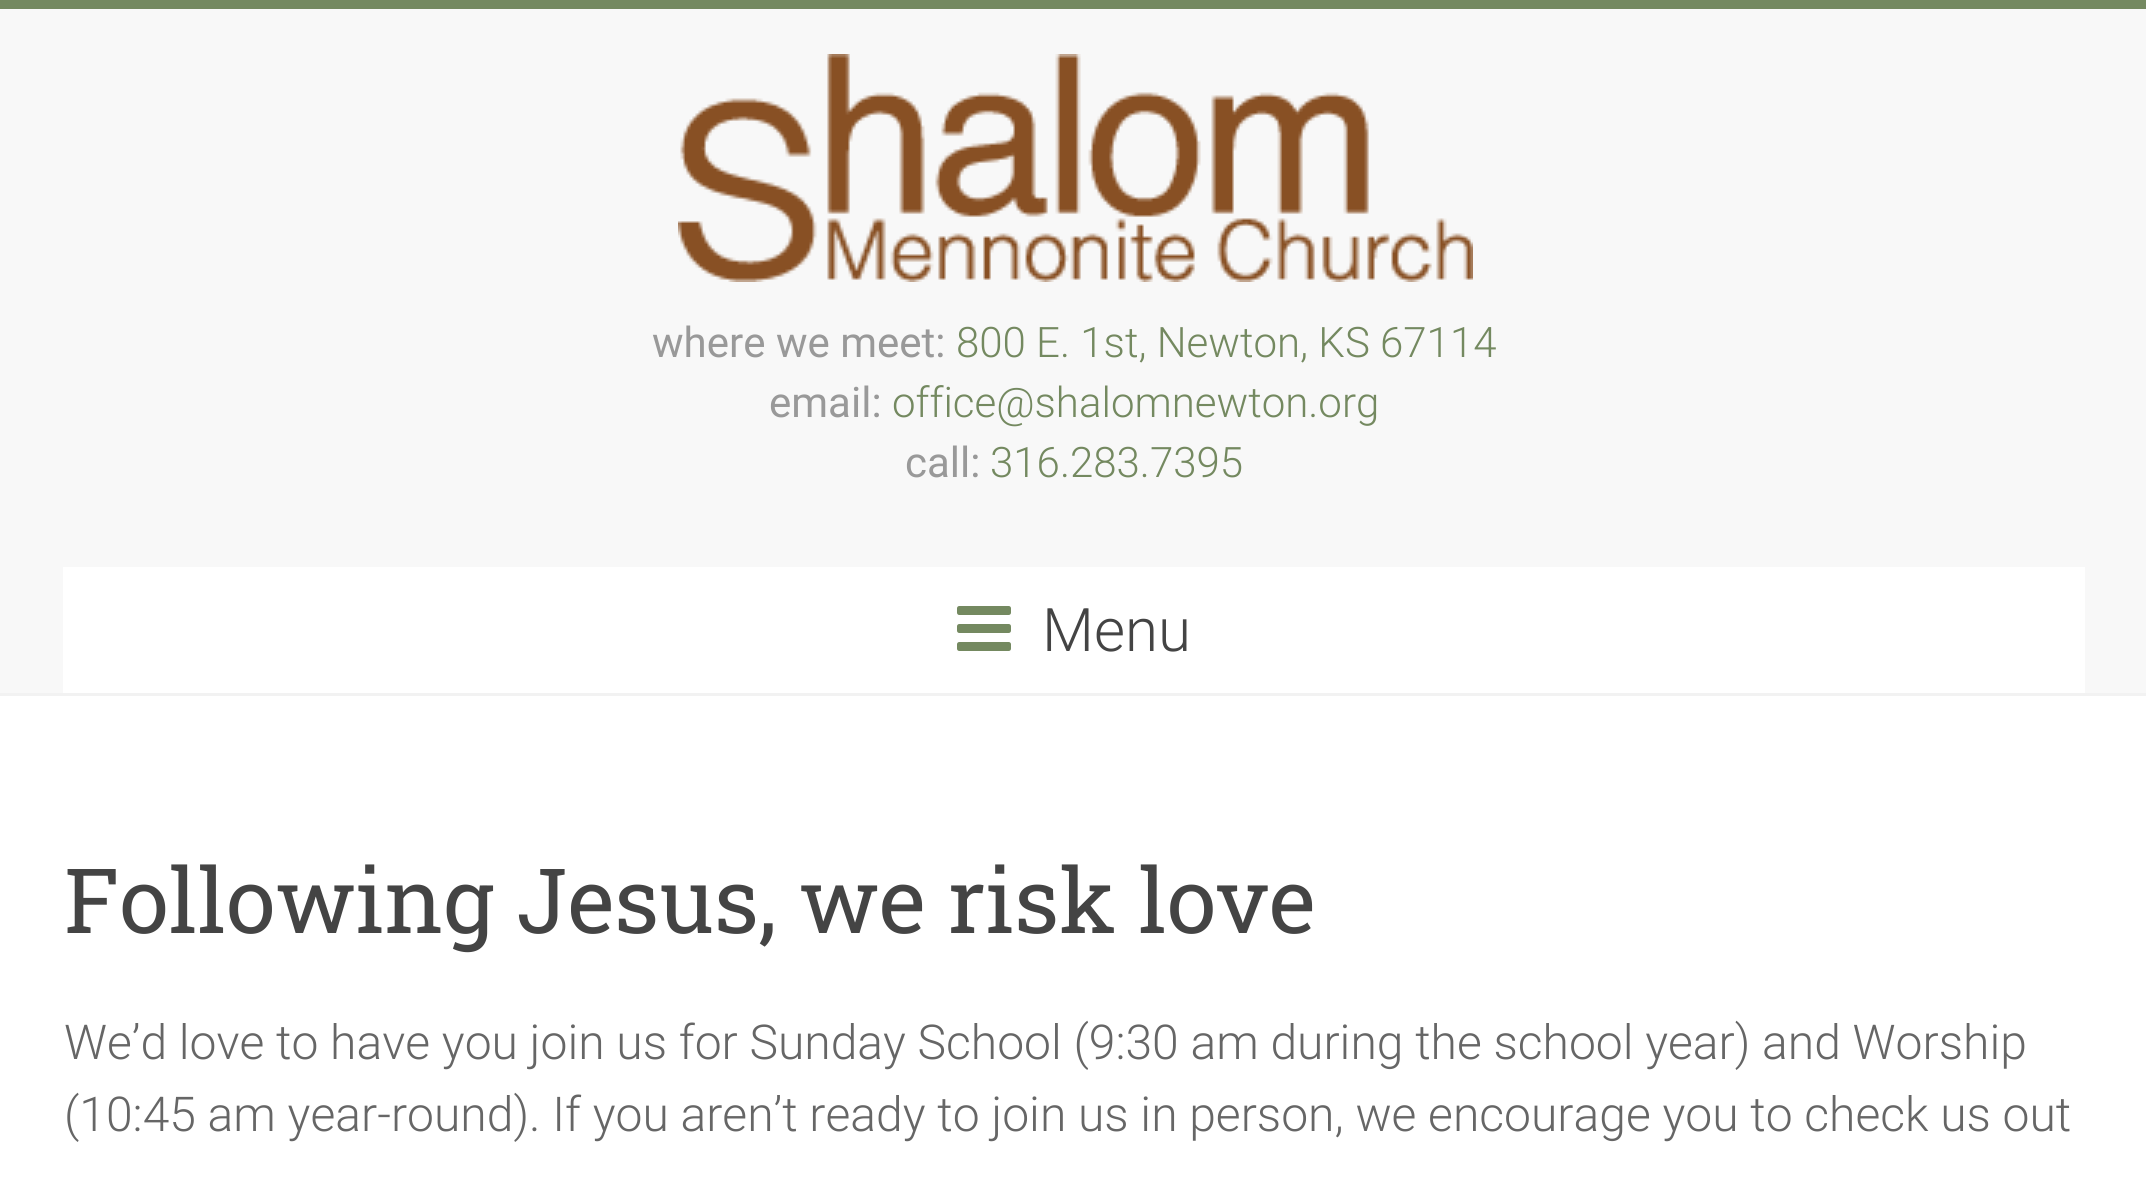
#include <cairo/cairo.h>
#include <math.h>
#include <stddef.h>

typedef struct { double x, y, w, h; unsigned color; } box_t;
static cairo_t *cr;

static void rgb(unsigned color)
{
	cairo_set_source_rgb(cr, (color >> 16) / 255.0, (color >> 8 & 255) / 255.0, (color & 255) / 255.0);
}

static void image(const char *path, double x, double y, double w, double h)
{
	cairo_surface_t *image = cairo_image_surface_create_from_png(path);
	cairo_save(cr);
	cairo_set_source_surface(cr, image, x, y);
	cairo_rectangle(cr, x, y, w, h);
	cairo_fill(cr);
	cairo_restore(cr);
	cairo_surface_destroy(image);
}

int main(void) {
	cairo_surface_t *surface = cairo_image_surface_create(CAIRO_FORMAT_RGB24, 2146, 1191);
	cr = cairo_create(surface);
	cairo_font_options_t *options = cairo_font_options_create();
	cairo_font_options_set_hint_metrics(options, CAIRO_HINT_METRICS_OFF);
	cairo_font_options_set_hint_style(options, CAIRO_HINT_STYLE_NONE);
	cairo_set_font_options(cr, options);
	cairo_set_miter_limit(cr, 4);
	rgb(0xffffff);
	cairo_paint(cr);
	{
		static const box_t items[] = {
			{0, 0, 2146, 9, 0x748960},
			{0, 9, 2146, 684, 0xf8f8f8},
			{0, 693, 2146, 3, 0xf2f2f2},
		};
		for (size_t i = 0; i < sizeof items / sizeof *items; i++) {
			rgb(items[i].color);
			cairo_rectangle(cr, items[i].x, items[i].y, items[i].w, items[i].h);
			cairo_fill(cr);
		}
	}
	image("img/1.png", 678, 54, 795, 228);
	rgb(0xffffff);
	cairo_rectangle(cr, 63, 567, 2022, 126);
	cairo_fill(cr);
	image("img/2.png", 957, 606, 54, 45);
	cairo_select_font_face(cr, "Roboto", CAIRO_FONT_SLANT_NORMAL, CAIRO_FONT_WEIGHT_NORMAL);
	cairo_set_font_size(cr, 42);
	rgb(0x999999);
	cairo_move_to(cr, 652, 357);
	cairo_show_text(cr, "where we meet:");
	cairo_select_font_face(cr, "Roboto Light", CAIRO_FONT_SLANT_NORMAL, CAIRO_FONT_WEIGHT_NORMAL);
	rgb(0x748960);
	cairo_move_to(cr, 956, 357);
	cairo_show_text(cr, "800 E. 1st, Newton, KS 67114");
	cairo_select_font_face(cr, "Roboto", CAIRO_FONT_SLANT_NORMAL, CAIRO_FONT_WEIGHT_NORMAL);
	rgb(0x999999);
	cairo_move_to(cr, 769, 417);
	cairo_show_text(cr, "email:");
	cairo_select_font_face(cr, "Roboto Light", CAIRO_FONT_SLANT_NORMAL, CAIRO_FONT_WEIGHT_NORMAL);
	rgb(0x748960);
	cairo_move_to(cr, 892, 417);
	cairo_show_text(cr, "office@shalomnewton.org");
	cairo_select_font_face(cr, "Roboto", CAIRO_FONT_SLANT_NORMAL, CAIRO_FONT_WEIGHT_NORMAL);
	rgb(0x999999);
	cairo_move_to(cr, 905, 477);
	cairo_show_text(cr, "call:");
	cairo_select_font_face(cr, "Roboto Light", CAIRO_FONT_SLANT_NORMAL, CAIRO_FONT_WEIGHT_NORMAL);
	rgb(0x748960);
	cairo_move_to(cr, 990, 477);
	cairo_show_text(cr, "316.283.7395");
	cairo_set_font_size(cr, 60);
	rgb(0x444444);
	cairo_move_to(cr, 1042, 651);
	cairo_show_text(cr, "Menu");
	cairo_select_font_face(cr, "Roboto Slab", CAIRO_FONT_SLANT_NORMAL, CAIRO_FONT_WEIGHT_NORMAL);
	cairo_set_font_size(cr, 90);
	cairo_move_to(cr, 64, 933);
	cairo_show_text(cr, "Following Jesus, we risk love");
	cairo_select_font_face(cr, "Roboto Light", CAIRO_FONT_SLANT_NORMAL, CAIRO_FONT_WEIGHT_NORMAL);
	cairo_set_font_size(cr, 48);
	rgb(0x666666);
	cairo_move_to(cr, 64, 1059);
	cairo_show_text(cr, "We’d love to have you join us for Sunday School (9:30 am during the school year) and Worship");
	cairo_move_to(cr, 64, 1131);
	cairo_show_text(cr, "(10:45 am year-round). If you aren’t ready to join us in person, we encourage you to check us out");
	cairo_surface_write_to_png(surface, "page.png");
	cairo_font_options_destroy(options);
	cairo_destroy(cr);
	cairo_surface_destroy(surface);
	return 0;
}
